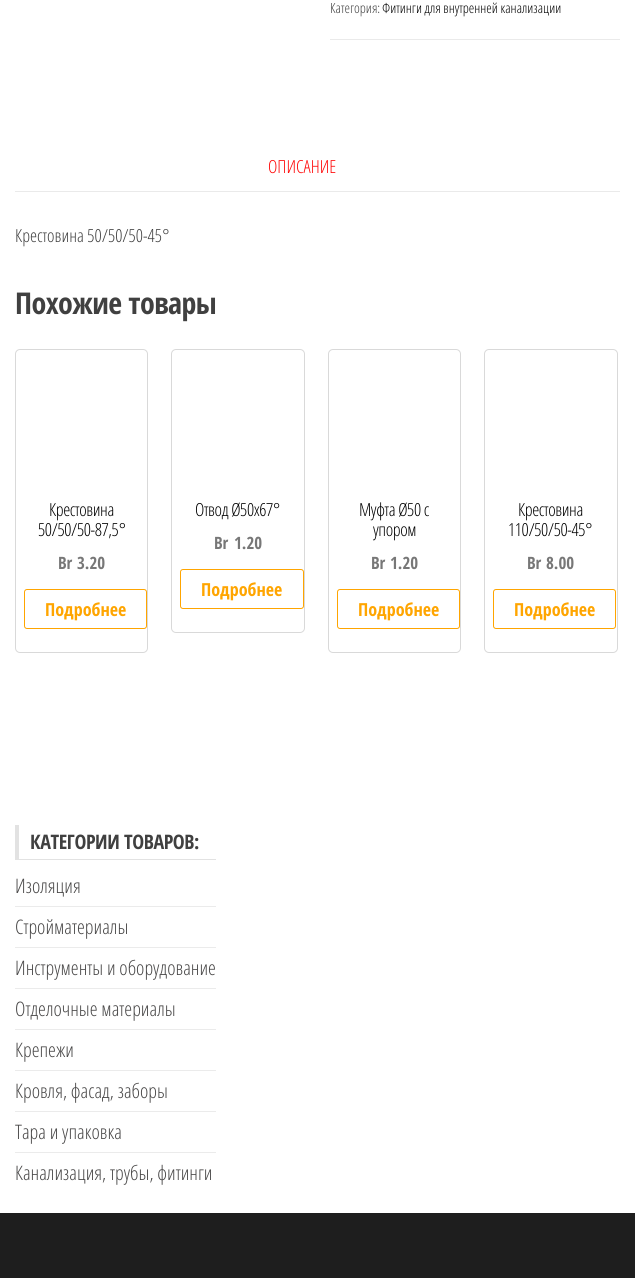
#include <cairo/cairo.h>
#include <math.h>
#include <stddef.h>

typedef struct { double x, y; const char *s; } line_t;
typedef struct { double x, y, w, h; unsigned color; } box_t;
static cairo_t *cr;

static void rgb(unsigned color)
{
	cairo_set_source_rgb(cr, (color >> 16) / 255.0, (color >> 8 & 255) / 255.0, (color & 255) / 255.0);
}

static void tracked(double x, double y, const char *s, double letter, double word)
{
	cairo_move_to(cr, x, y);
	while (*s) {
		char ch[5] = {0};
		int n = 0;
		do ch[n++] = *s++; while ((*s & 0xC0) == 0x80);
		cairo_show_text(cr, ch);
		cairo_rel_move_to(cr, letter + word * (*ch == ' '), 0);
	}
}

static void rrect(double x, double y, double w, double h, double r)
{
	cairo_new_sub_path(cr);
	cairo_arc(cr, x + w - r, y + h - r, r, 0, M_PI / 2);
	cairo_arc(cr, x + r, y + h - r, r, M_PI / 2, M_PI);
	cairo_arc(cr, x + r, y + r, r, M_PI, 1.5 * M_PI);
	cairo_arc(cr, x + w - r, y + r, r, 1.5 * M_PI, 2 * M_PI);
	cairo_close_path(cr);
}

int main(void) {
	cairo_surface_t *surface = cairo_image_surface_create(CAIRO_FORMAT_RGB24, 635, 1278);
	cr = cairo_create(surface);
	cairo_font_options_t *options = cairo_font_options_create();
	cairo_font_options_set_hint_metrics(options, CAIRO_HINT_METRICS_OFF);
	cairo_font_options_set_hint_style(options, CAIRO_HINT_STYLE_NONE);
	cairo_set_font_options(cr, options);
	cairo_set_miter_limit(cr, 4);
	rgb(0xffffff);
	cairo_paint(cr);
	rgb(0xeaeaea);
	cairo_rectangle(cr, 330, 39, 290, 1);
	cairo_fill(cr);
	cairo_rectangle(cr, 15, 191, 605, 1);
	cairo_fill(cr);
	rrect(15.5, 349.5, 132, 303, 4.5);
	rgb(0xd9d9d9);
	cairo_set_line_width(cr, 1);
	cairo_stroke(cr);
	rrect(24.5, 589.5, 122, 39, 2.5);
	rgb(0xffa500);
	cairo_stroke(cr);
	rrect(171.5, 349.5, 133, 283, 4.5);
	rgb(0xd9d9d9);
	cairo_stroke(cr);
	rrect(180.5, 569.5, 123, 39, 2.5);
	rgb(0xffa500);
	cairo_stroke(cr);
	rrect(328.5, 349.5, 132, 303, 4.5);
	rgb(0xd9d9d9);
	cairo_stroke(cr);
	rrect(337.5, 589.5, 122, 39, 2.5);
	rgb(0xffa500);
	cairo_stroke(cr);
	rrect(484.5, 349.5, 133, 303, 4.5);
	rgb(0xd9d9d9);
	cairo_stroke(cr);
	rrect(493.5, 589.5, 122, 39, 2.5);
	rgb(0xffa500);
	cairo_stroke(cr);
	{
		static const box_t items[] = {
			{15, 859, 201, 1, 0xe2e2e2},
			{15, 825, 4, 34, 0xe2e2e2},
			{15, 906, 201, 1, 0xebebeb},
			{15, 947, 201, 1, 0xebebeb},
			{15, 988, 201, 1, 0xebebeb},
			{15, 1029, 201, 1, 0xebebeb},
			{15, 1070, 201, 1, 0xebebeb},
			{15, 1111, 201, 1, 0xebebeb},
			{15, 1152, 201, 1, 0xebebeb},
			{0, 1213, 635, 65, 0x1e1e1e},
		};
		for (size_t i = 0; i < sizeof items / sizeof *items; i++) {
			rgb(items[i].color);
			cairo_rectangle(cr, items[i].x, items[i].y, items[i].w, items[i].h);
			cairo_fill(cr);
		}
	}
	cairo_select_font_face(cr, "Open Sans Condensed Light", CAIRO_FONT_SLANT_NORMAL, CAIRO_FONT_WEIGHT_NORMAL);
	cairo_set_font_size(cr, 14);
	rgb(0x404040);
	cairo_move_to(cr, 330, 13);
	cairo_show_text(cr, "Категория:");
	rgb(0x000000);
	cairo_move_to(cr, 382, 13);
	cairo_show_text(cr, "Фитинги для внутренней канализации");
	cairo_set_font_size(cr, 18);
	rgb(0xff0707);
	cairo_move_to(cr, 268, 173);
	cairo_show_text(cr, "ОПИСАНИЕ");
	rgb(0x404040);
	cairo_move_to(cr, 15, 242);
	cairo_show_text(cr, "Крестовина 50/50/50-45°");
	cairo_select_font_face(cr, "Open Sans Condensed", CAIRO_FONT_SLANT_NORMAL, CAIRO_FONT_WEIGHT_BOLD);
	cairo_set_font_size(cr, 30);
	tracked(15, 314, "Похожие товары", -0.6, 0);
	cairo_select_font_face(cr, "Open Sans Condensed Light", CAIRO_FONT_SLANT_NORMAL, CAIRO_FONT_WEIGHT_NORMAL);
	cairo_set_font_size(cr, 18);
	rgb(0x000000);
	tracked(49, 516, "Крестовина", -0.4, 0);
	tracked(38, 536, "50/50/50-87,5°", -0.4, 0);
	cairo_select_font_face(cr, "Open Sans Condensed", CAIRO_FONT_SLANT_NORMAL, CAIRO_FONT_WEIGHT_BOLD);
	cairo_set_font_size(cr, 17);
	rgb(0x777777);
	cairo_move_to(cr, 58, 569);
	cairo_show_text(cr, "Br");
	cairo_move_to(cr, 77, 569);
	cairo_show_text(cr, "3.20");
	cairo_set_font_size(cr, 18);
	rgb(0xffa500);
	cairo_move_to(cr, 45, 616);
	cairo_show_text(cr, "Подробнее");
	cairo_select_font_face(cr, "Open Sans Condensed Light", CAIRO_FONT_SLANT_NORMAL, CAIRO_FONT_WEIGHT_NORMAL);
	rgb(0x000000);
	tracked(195, 516, "Отвод Ø50х67°", -0.4, 0);
	cairo_select_font_face(cr, "Open Sans Condensed", CAIRO_FONT_SLANT_NORMAL, CAIRO_FONT_WEIGHT_BOLD);
	cairo_set_font_size(cr, 17);
	rgb(0x777777);
	cairo_move_to(cr, 214, 549);
	cairo_show_text(cr, "Br");
	cairo_move_to(cr, 234, 549);
	cairo_show_text(cr, "1.20");
	cairo_set_font_size(cr, 18);
	rgb(0xffa500);
	cairo_move_to(cr, 201, 596);
	cairo_show_text(cr, "Подробнее");
	cairo_select_font_face(cr, "Open Sans Condensed Light", CAIRO_FONT_SLANT_NORMAL, CAIRO_FONT_WEIGHT_NORMAL);
	rgb(0x000000);
	tracked(359, 516, "Муфта Ø50 с", -0.4, 0);
	tracked(373, 536, "упором", -0.4, 0);
	cairo_select_font_face(cr, "Open Sans Condensed", CAIRO_FONT_SLANT_NORMAL, CAIRO_FONT_WEIGHT_BOLD);
	cairo_set_font_size(cr, 17);
	rgb(0x777777);
	cairo_move_to(cr, 371, 569);
	cairo_show_text(cr, "Br");
	cairo_move_to(cr, 390, 569);
	cairo_show_text(cr, "1.20");
	cairo_set_font_size(cr, 18);
	rgb(0xffa500);
	cairo_move_to(cr, 358, 616);
	cairo_show_text(cr, "Подробнее");
	cairo_select_font_face(cr, "Open Sans Condensed Light", CAIRO_FONT_SLANT_NORMAL, CAIRO_FONT_WEIGHT_NORMAL);
	rgb(0x000000);
	tracked(518, 516, "Крестовина", -0.4, 0);
	tracked(508, 536, "110/50/50-45°", -0.4, 0);
	cairo_select_font_face(cr, "Open Sans Condensed", CAIRO_FONT_SLANT_NORMAL, CAIRO_FONT_WEIGHT_BOLD);
	cairo_set_font_size(cr, 17);
	rgb(0x777777);
	cairo_move_to(cr, 527, 569);
	cairo_show_text(cr, "Br");
	cairo_move_to(cr, 546, 569);
	cairo_show_text(cr, "8.00");
	cairo_set_font_size(cr, 18);
	rgb(0xffa500);
	cairo_move_to(cr, 514, 616);
	cairo_show_text(cr, "Подробнее");
	cairo_set_font_size(cr, 20);
	rgb(0x404040);
	tracked(30, 849, "КАТЕГОРИИ ТОВАРОВ:", -0.4, 0);
	cairo_select_font_face(cr, "Open Sans Condensed Light", CAIRO_FONT_SLANT_NORMAL, CAIRO_FONT_WEIGHT_NORMAL);
	rgb(0x494848);
	{
		static const line_t items[] = {
			{15, 893, "Изоляция"},
			{15, 934, "Стройматериалы"},
			{15, 975, "Инструменты и оборудование"},
			{15, 1016, "Отделочные материалы"},
			{15, 1057, "Крепежи"},
			{15, 1098, "Кровля, фасад, заборы"},
			{15, 1139, "Тара и упаковка"},
			{15, 1180, "Канализация, трубы, фитинги"},
		};
		for (size_t i = 0; i < sizeof items / sizeof *items; i++) {
			cairo_move_to(cr, items[i].x, items[i].y);
			cairo_show_text(cr, items[i].s);
		}
	}
	cairo_surface_write_to_png(surface, "page.png");
	cairo_font_options_destroy(options);
	cairo_destroy(cr);
	cairo_surface_destroy(surface);
	return 0;
}
